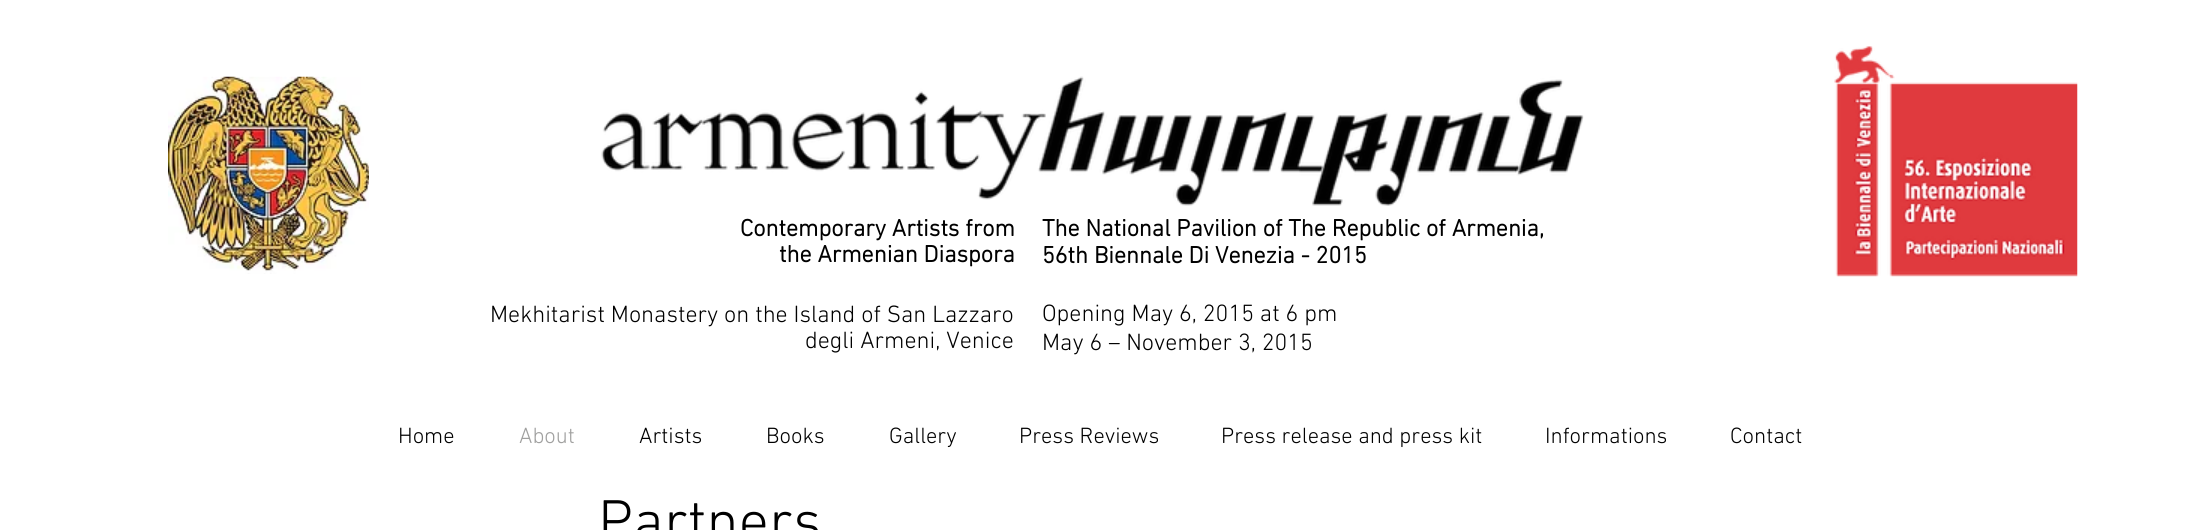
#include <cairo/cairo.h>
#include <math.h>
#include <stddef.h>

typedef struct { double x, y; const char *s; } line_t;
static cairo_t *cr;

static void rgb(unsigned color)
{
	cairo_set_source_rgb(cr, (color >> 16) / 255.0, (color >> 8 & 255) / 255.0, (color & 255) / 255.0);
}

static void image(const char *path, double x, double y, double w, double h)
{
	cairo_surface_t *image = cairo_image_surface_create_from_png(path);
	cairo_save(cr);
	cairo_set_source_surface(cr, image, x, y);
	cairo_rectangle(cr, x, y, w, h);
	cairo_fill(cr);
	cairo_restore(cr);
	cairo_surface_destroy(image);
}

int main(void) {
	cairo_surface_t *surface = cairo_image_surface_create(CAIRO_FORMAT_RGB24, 2209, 530);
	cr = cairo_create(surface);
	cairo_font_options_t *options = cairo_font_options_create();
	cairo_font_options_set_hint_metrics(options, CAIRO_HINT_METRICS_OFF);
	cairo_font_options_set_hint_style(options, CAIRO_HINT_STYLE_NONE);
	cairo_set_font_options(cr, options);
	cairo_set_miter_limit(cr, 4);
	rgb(0xffffff);
	cairo_paint(cr);
	image("img/1.png", 168, 76, 201, 198);
	image("img/2.png", 601, 76, 983, 130);
	image("img/3.png", 1834, 46, 244, 231);
	cairo_select_font_face(cr, "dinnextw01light", CAIRO_FONT_SLANT_NORMAL, CAIRO_FONT_WEIGHT_BOLD);
	cairo_set_font_size(cr, 24);
	rgb(0x000000);
	cairo_move_to(cr, 740, 236);
	cairo_show_text(cr, "Contemporary Artists from");
	cairo_move_to(cr, 779, 262);
	cairo_show_text(cr, "the Armenian Diaspora");
	cairo_select_font_face(cr, "dinnextw01light Light", CAIRO_FONT_SLANT_NORMAL, CAIRO_FONT_WEIGHT_NORMAL);
	cairo_move_to(cr, 490, 322);
	cairo_show_text(cr, "Mekhitarist Monastery on the Island of San Lazzaro");
	cairo_move_to(cr, 805, 348);
	cairo_show_text(cr, "degli Armeni, Venice");
	cairo_select_font_face(cr, "dinnextw01light", CAIRO_FONT_SLANT_NORMAL, CAIRO_FONT_WEIGHT_BOLD);
	cairo_move_to(cr, 1042, 236);
	cairo_show_text(cr, "The National Pavilion of The Republic of Armenia,");
	cairo_move_to(cr, 1042, 263);
	cairo_show_text(cr, "56th Biennale Di Venezia - 2015");
	cairo_select_font_face(cr, "dinnextw01light Light", CAIRO_FONT_SLANT_NORMAL, CAIRO_FONT_WEIGHT_NORMAL);
	cairo_move_to(cr, 1042, 321);
	cairo_show_text(cr, "Opening May 6, 2015 at 6 pm");
	cairo_move_to(cr, 1042, 350);
	cairo_show_text(cr, "May 6 – November 3, 2015");
	cairo_set_font_size(cr, 22.5);
	cairo_move_to(cr, 398, 443);
	cairo_show_text(cr, "Home");
	rgb(0xa0a09f);
	cairo_move_to(cr, 519, 443);
	cairo_show_text(cr, "About");
	rgb(0x000000);
	{
		static const line_t items[] = {
			{639, 443, "Artists"},
			{766, 443, "Books"},
			{889, 443, "Gallery"},
			{1019, 443, "Press Reviews"},
			{1221, 443, "Press release and press kit"},
			{1545, 443, "Informations"},
			{1730, 443, "Contact"},
		};
		for (size_t i = 0; i < sizeof items / sizeof *items; i++) {
			cairo_move_to(cr, items[i].x, items[i].y);
			cairo_show_text(cr, items[i].s);
		}
	}
	cairo_set_font_size(cr, 60);
	cairo_move_to(cr, 598, 541);
	cairo_show_text(cr, "Partners");
	cairo_surface_write_to_png(surface, "page.png");
	cairo_font_options_destroy(options);
	cairo_destroy(cr);
	cairo_surface_destroy(surface);
	return 0;
}
